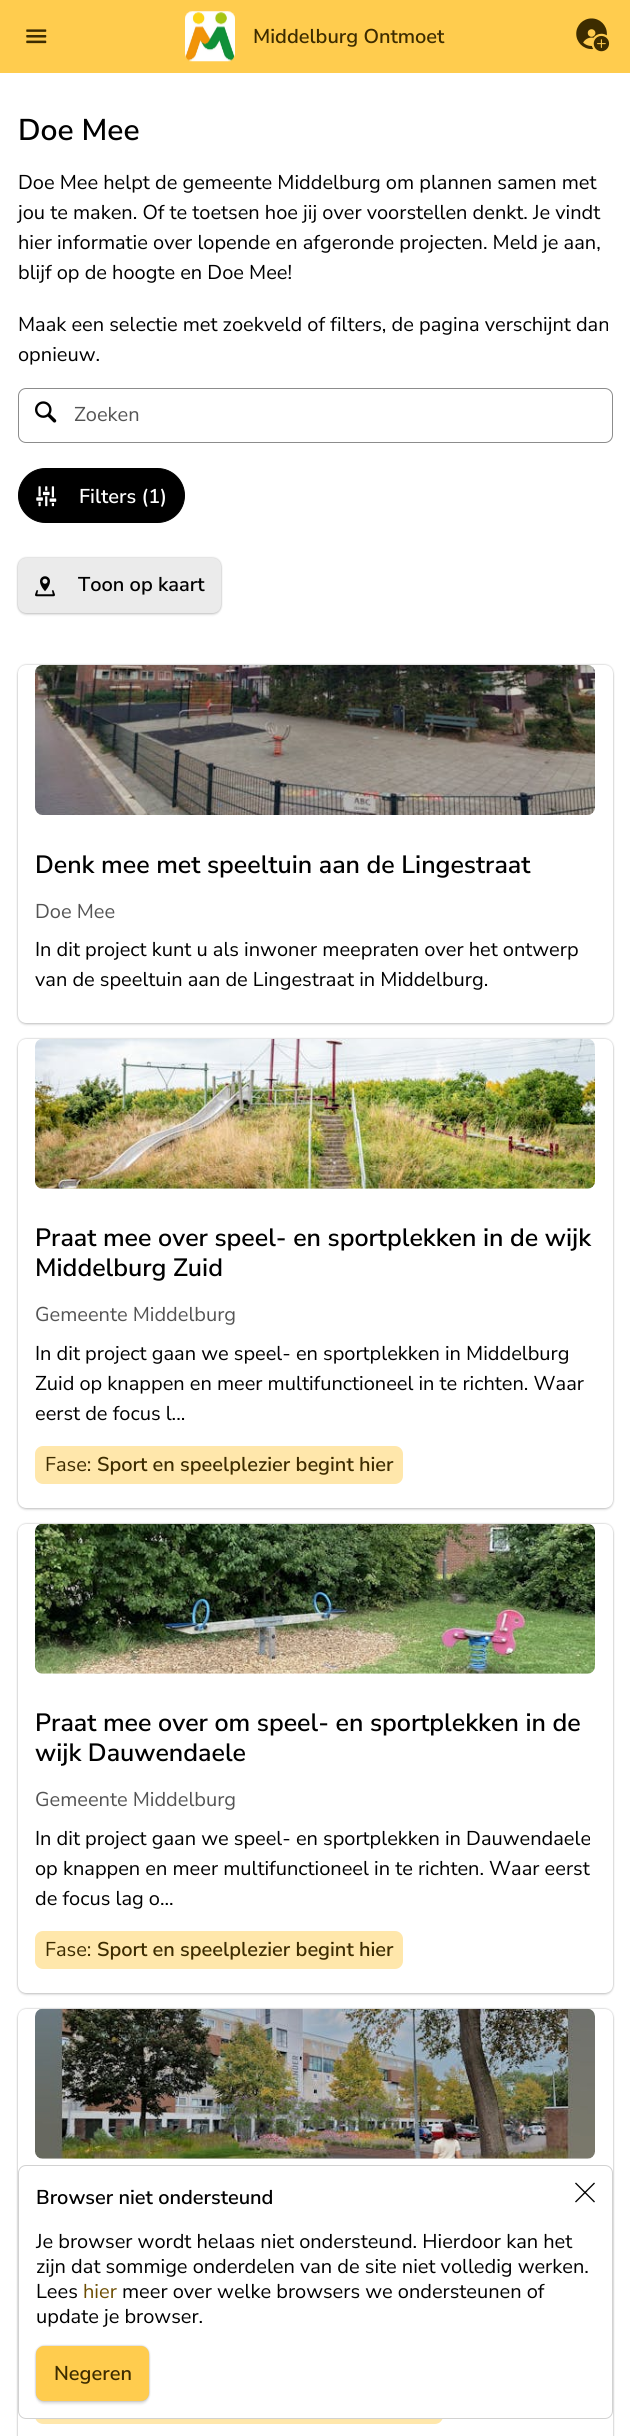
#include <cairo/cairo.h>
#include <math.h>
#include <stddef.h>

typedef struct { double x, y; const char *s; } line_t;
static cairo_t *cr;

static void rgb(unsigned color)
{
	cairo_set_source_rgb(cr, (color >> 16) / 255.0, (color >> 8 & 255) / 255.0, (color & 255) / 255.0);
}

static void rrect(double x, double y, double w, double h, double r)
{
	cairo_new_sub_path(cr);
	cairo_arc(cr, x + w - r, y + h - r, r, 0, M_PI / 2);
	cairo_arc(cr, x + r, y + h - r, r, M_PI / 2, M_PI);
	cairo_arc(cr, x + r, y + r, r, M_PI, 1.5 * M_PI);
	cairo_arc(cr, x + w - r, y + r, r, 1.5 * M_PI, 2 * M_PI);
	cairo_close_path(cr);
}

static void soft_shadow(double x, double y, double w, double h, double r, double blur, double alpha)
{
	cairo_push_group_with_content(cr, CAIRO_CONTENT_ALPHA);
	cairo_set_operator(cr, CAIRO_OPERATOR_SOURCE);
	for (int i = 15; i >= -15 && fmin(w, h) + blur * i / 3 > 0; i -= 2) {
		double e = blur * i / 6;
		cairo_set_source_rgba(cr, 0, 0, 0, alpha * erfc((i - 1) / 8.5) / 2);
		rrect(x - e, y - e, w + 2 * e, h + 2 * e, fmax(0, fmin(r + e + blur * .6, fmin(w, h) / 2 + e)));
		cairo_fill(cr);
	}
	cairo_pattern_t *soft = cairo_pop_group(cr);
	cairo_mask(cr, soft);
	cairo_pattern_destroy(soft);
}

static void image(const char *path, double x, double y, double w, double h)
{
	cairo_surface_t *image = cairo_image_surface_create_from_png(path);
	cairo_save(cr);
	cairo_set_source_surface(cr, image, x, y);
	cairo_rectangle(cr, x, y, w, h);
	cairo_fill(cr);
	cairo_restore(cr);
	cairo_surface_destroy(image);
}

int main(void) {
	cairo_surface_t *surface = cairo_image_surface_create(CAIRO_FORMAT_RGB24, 630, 2436);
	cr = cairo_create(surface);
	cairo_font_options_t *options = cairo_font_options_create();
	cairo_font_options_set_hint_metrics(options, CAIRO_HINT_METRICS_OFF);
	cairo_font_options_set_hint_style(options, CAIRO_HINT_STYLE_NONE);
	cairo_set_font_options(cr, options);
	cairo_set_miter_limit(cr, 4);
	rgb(0xffffff);
	cairo_paint(cr);
	rgb(0xffcc4e);
	cairo_rectangle(cr, 0, 0, 630, 73);
	cairo_fill(cr);
	image("img/1.png", 26, 29, 21, 15);
	image("img/2.png", 185, 11, 50, 51);
	image("img/3.png", 576, 18, 34, 34);
	rrect(18.5, 388.5, 594, 54, 7.5);
	rgb(0x8c8c8c);
	cairo_set_line_width(cr, 1);
	cairo_stroke(cr);
	image("img/4.png", 35, 401, 22, 22);
	rgb(0x000000);
	rrect(18.5, 468.5, 166, 54, 27);
	cairo_fill_preserve(cr);
	cairo_stroke(cr);
	image("img/5.png", 36, 486, 21, 21);
	rgb(0x000000);
	soft_shadow(18, 560, 203, 55, 8, 1, 0.1);
	soft_shadow(18, 558, 203, 55, 8, 1, 0.3);
	rgb(0xebebeb);
	rrect(18, 558, 203, 55, 8);
	cairo_fill(cr);
	image("img/6.png", 35, 576, 20, 21);
	rgb(0x000000);
	soft_shadow(18, 668, 595, 357, 8, 1, 0.1);
	soft_shadow(18, 665, 595, 358, 8, 1, 0.3);
	rgb(0xffffff);
	rrect(18, 665, 595, 358, 8);
	cairo_fill(cr);
	image("img/7.png", 35, 665, 560, 150);
	rgb(0x000000);
	soft_shadow(18, 1041, 595, 469, 8, 1, 0.1);
	soft_shadow(18, 1039, 595, 469, 8, 1, 0.3);
	rgb(0xffffff);
	rrect(18, 1039, 595, 469, 8);
	cairo_fill(cr);
	image("img/8.png", 35, 1038, 560, 151);
	rgb(0xffe7ab);
	rrect(35, 1446, 368, 38, 8);
	cairo_fill(cr);
	rgb(0x000000);
	soft_shadow(18, 1526, 595, 469, 8, 1, 0.1);
	soft_shadow(18, 1524, 595, 469, 8, 1, 0.3);
	rgb(0xffffff);
	rrect(18, 1524, 595, 469, 8);
	cairo_fill(cr);
	image("img/9.png", 35, 1523, 560, 151);
	rgb(0xffe7ab);
	rrect(35, 1931, 368, 38, 8);
	cairo_fill(cr);
	rgb(0x000000);
	soft_shadow(18, 2011, 595, 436, 8, 1, 0.1);
	soft_shadow(18, 2009, 595, 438, 8, 1, 0.3);
	rgb(0xffffff);
	rrect(18, 2009, 595, 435, 8);
	cairo_fill(cr);
	image("img/10.png", 35, 2008, 560, 151);
	rgb(0xffe7ab);
	rrect(35, 2386, 408, 38, 8);
	cairo_fill(cr);
	rgb(0xffffff);
	rrect(18.5, 2165.5, 594, 253, 7.5);
	cairo_fill_preserve(cr);
	rgb(0xd2d2d2);
	cairo_stroke(cr);
	image("img/11.png", 575, 2182, 20, 21);
	rgb(0x000000);
	soft_shadow(36, 2349, 113, 55, 8, 1, 0.1);
	soft_shadow(36, 2346, 113, 55, 8, 1, 0.3);
	rgb(0xffcc4e);
	rrect(36, 2346, 113, 55, 8);
	cairo_fill(cr);
	cairo_select_font_face(cr, "Nunito Sans SemiBold", CAIRO_FONT_SLANT_NORMAL, CAIRO_FONT_WEIGHT_NORMAL);
	cairo_set_font_size(cr, 20);
	rgb(0x3d2c00);
	cairo_move_to(cr, 253, 43);
	cairo_show_text(cr, "Middelburg Ontmoet");
	cairo_set_font_size(cr, 30);
	rgb(0x000000);
	cairo_move_to(cr, 18, 140);
	cairo_show_text(cr, "Doe Mee");
	cairo_select_font_face(cr, "Nunito Sans", CAIRO_FONT_SLANT_NORMAL, CAIRO_FONT_WEIGHT_NORMAL);
	cairo_set_font_size(cr, 20);
	{
		static const line_t items[] = {
			{18, 189, "Doe Mee helpt de gemeente Middelburg om plannen samen met"},
			{18, 219, "jou te maken. Of te toetsen hoe jij over voorstellen denkt. Je vindt"},
			{18, 249, "hier informatie over lopende en afgeronde projecten. Meld je aan,"},
			{18, 279, "blijf op de hoogte en Doe Mee!"},
			{18, 331, "Maak een selectie met zoekveld of filters, de pagina verschijnt dan"},
			{18, 361, "opnieuw."},
		};
		for (size_t i = 0; i < sizeof items / sizeof *items; i++) {
			cairo_move_to(cr, items[i].x, items[i].y);
			cairo_show_text(cr, items[i].s);
		}
	}
	rgb(0x545454);
	cairo_move_to(cr, 74, 421);
	cairo_show_text(cr, "Zoeken");
	cairo_select_font_face(cr, "Nunito Sans SemiBold", CAIRO_FONT_SLANT_NORMAL, CAIRO_FONT_WEIGHT_NORMAL);
	rgb(0xffffff);
	cairo_move_to(cr, 79, 503);
	cairo_show_text(cr, "Filters (1)");
	rgb(0x000000);
	cairo_move_to(cr, 78, 591);
	cairo_show_text(cr, "Toon op kaart");
	cairo_set_font_size(cr, 25);
	cairo_move_to(cr, 35, 873);
	cairo_show_text(cr, "Denk mee met speeltuin aan de Lingestraat");
	cairo_select_font_face(cr, "Nunito Sans", CAIRO_FONT_SLANT_NORMAL, CAIRO_FONT_WEIGHT_NORMAL);
	cairo_set_font_size(cr, 20);
	rgb(0x545454);
	cairo_move_to(cr, 35, 918);
	cairo_show_text(cr, "Doe Mee");
	rgb(0x000000);
	cairo_move_to(cr, 35, 956);
	cairo_show_text(cr, "In dit project kunt u als inwoner meepraten over het ontwerp");
	cairo_move_to(cr, 35, 986);
	cairo_show_text(cr, "van de speeltuin aan de Lingestraat in Middelburg.");
	cairo_select_font_face(cr, "Nunito Sans SemiBold", CAIRO_FONT_SLANT_NORMAL, CAIRO_FONT_WEIGHT_NORMAL);
	cairo_set_font_size(cr, 25);
	cairo_move_to(cr, 35, 1246);
	cairo_show_text(cr, "Praat mee over speel- en sportplekken in de wijk");
	cairo_move_to(cr, 35, 1276);
	cairo_show_text(cr, "Middelburg Zuid");
	cairo_select_font_face(cr, "Nunito Sans", CAIRO_FONT_SLANT_NORMAL, CAIRO_FONT_WEIGHT_NORMAL);
	cairo_set_font_size(cr, 20);
	rgb(0x545454);
	cairo_move_to(cr, 35, 1321);
	cairo_show_text(cr, "Gemeente Middelburg");
	rgb(0x000000);
	{
		static const line_t items[] = {
			{35, 1360, "In dit project gaan we speel- en sportplekken in Middelburg"},
			{35, 1390, "Zuid op knappen en meer multifunctioneel in te richten. Waar"},
			{35, 1420, "eerst de focus l..."},
		};
		for (size_t i = 0; i < sizeof items / sizeof *items; i++) {
			cairo_move_to(cr, items[i].x, items[i].y);
			cairo_show_text(cr, items[i].s);
		}
	}
	rgb(0x3d2c00);
	cairo_move_to(cr, 45, 1471);
	cairo_show_text(cr, "Fase:");
	cairo_select_font_face(cr, "Nunito Sans SemiBold", CAIRO_FONT_SLANT_NORMAL, CAIRO_FONT_WEIGHT_NORMAL);
	cairo_move_to(cr, 97, 1471);
	cairo_show_text(cr, "Sport en speelplezier begint hier");
	cairo_set_font_size(cr, 25);
	rgb(0x000000);
	cairo_move_to(cr, 35, 1731);
	cairo_show_text(cr, "Praat mee over om speel- en sportplekken in de");
	cairo_move_to(cr, 35, 1761);
	cairo_show_text(cr, "wijk Dauwendaele");
	cairo_select_font_face(cr, "Nunito Sans", CAIRO_FONT_SLANT_NORMAL, CAIRO_FONT_WEIGHT_NORMAL);
	cairo_set_font_size(cr, 20);
	rgb(0x545454);
	cairo_move_to(cr, 35, 1806);
	cairo_show_text(cr, "Gemeente Middelburg");
	rgb(0x000000);
	{
		static const line_t items[] = {
			{35, 1845, "In dit project gaan we speel- en sportplekken in Dauwendaele"},
			{35, 1875, "op knappen en meer multifunctioneel in te richten. Waar eerst"},
			{35, 1905, "de focus lag o..."},
		};
		for (size_t i = 0; i < sizeof items / sizeof *items; i++) {
			cairo_move_to(cr, items[i].x, items[i].y);
			cairo_show_text(cr, items[i].s);
		}
	}
	rgb(0x3d2c00);
	cairo_move_to(cr, 45, 1956);
	cairo_show_text(cr, "Fase:");
	cairo_select_font_face(cr, "Nunito Sans SemiBold", CAIRO_FONT_SLANT_NORMAL, CAIRO_FONT_WEIGHT_NORMAL);
	cairo_move_to(cr, 97, 1956);
	cairo_show_text(cr, "Sport en speelplezier begint hier");
	rgb(0x000000);
	cairo_move_to(cr, 36, 2204);
	cairo_show_text(cr, "Browser niet ondersteund");
	cairo_select_font_face(cr, "Nunito Sans", CAIRO_FONT_SLANT_NORMAL, CAIRO_FONT_WEIGHT_NORMAL);
	{
		static const line_t items[] = {
			{36, 2248, "Je browser wordt helaas niet ondersteund. Hierdoor kan het"},
			{36, 2273, "zijn dat sommige onderdelen van de site niet volledig werken."},
			{36, 2298, "Lees"},
		};
		for (size_t i = 0; i < sizeof items / sizeof *items; i++) {
			cairo_move_to(cr, items[i].x, items[i].y);
			cairo_show_text(cr, items[i].s);
		}
	}
	rgb(0x6c4d02);
	cairo_move_to(cr, 83, 2298);
	cairo_show_text(cr, "hier");
	rgb(0x000000);
	cairo_move_to(cr, 122, 2298);
	cairo_show_text(cr, "meer over welke browsers we ondersteunen of");
	cairo_move_to(cr, 36, 2323);
	cairo_show_text(cr, "update je browser.");
	cairo_select_font_face(cr, "Nunito Sans SemiBold", CAIRO_FONT_SLANT_NORMAL, CAIRO_FONT_WEIGHT_NORMAL);
	rgb(0x3d2c00);
	cairo_move_to(cr, 54, 2380);
	cairo_show_text(cr, "Negeren");
	cairo_surface_write_to_png(surface, "page.png");
	cairo_font_options_destroy(options);
	cairo_destroy(cr);
	cairo_surface_destroy(surface);
	return 0;
}
